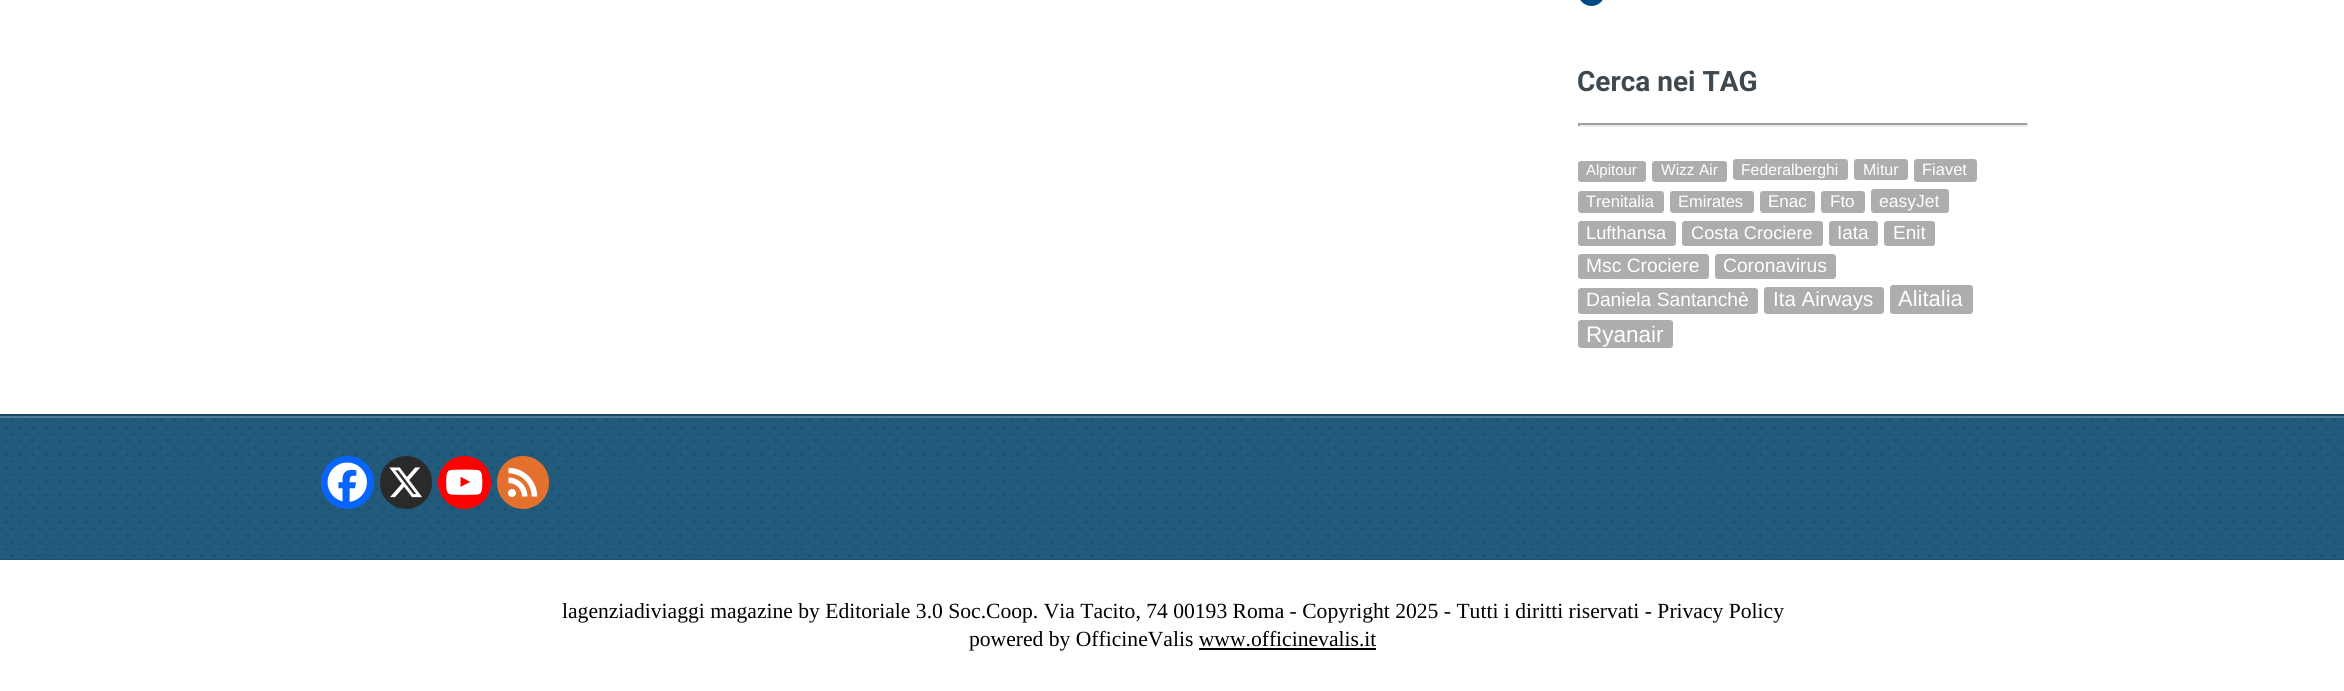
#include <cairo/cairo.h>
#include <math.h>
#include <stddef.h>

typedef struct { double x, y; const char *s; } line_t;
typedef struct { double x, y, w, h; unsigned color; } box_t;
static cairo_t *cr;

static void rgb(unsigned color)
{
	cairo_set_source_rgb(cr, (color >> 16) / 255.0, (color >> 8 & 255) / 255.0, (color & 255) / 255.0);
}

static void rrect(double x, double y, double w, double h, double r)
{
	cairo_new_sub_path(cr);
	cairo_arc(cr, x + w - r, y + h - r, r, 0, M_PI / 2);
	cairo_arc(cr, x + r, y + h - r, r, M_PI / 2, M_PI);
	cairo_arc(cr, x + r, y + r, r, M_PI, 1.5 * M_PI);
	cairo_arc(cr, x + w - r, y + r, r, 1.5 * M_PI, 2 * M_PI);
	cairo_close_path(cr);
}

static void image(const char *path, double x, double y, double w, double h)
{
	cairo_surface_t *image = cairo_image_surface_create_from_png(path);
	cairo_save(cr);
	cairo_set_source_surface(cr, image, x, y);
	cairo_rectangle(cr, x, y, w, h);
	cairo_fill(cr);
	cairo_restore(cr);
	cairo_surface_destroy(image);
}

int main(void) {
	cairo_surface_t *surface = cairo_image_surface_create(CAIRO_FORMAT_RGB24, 2344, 691);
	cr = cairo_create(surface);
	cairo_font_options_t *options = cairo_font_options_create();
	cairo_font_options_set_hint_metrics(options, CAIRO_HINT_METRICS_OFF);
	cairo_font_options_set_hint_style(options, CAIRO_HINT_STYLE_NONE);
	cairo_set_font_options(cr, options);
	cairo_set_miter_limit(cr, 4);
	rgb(0xffffff);
	cairo_paint(cr);
	rgb(0x004984);
	rrect(1578, -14, 27, 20, 13.5);
	cairo_fill(cr);
	{
		static const box_t items[] = {
			{1578, 123, 450, 2, 0x9f9f9f},
			{2027, 123, 2, 3, 0xeeeeee},
			{1578, 125, 450, 2, 0xeeeeee},
			{1578, 123, 2, 3, 0x9f9f9f},
		};
		for (size_t i = 0; i < sizeof items / sizeof *items; i++) {
			rgb(items[i].color);
			cairo_rectangle(cr, items[i].x, items[i].y, items[i].w, items[i].h);
			cairo_fill(cr);
		}
	}
	rgb(0xadadad);
	rrect(1578, 161, 68, 21, 3);
	cairo_fill(cr);
	rrect(1652, 161, 75, 21, 3);
	cairo_fill(cr);
	rrect(1733, 159, 115, 21, 3);
	cairo_fill(cr);
	rrect(1854, 159, 54, 21, 3);
	cairo_fill(cr);
	rrect(1914, 159, 63, 23, 3);
	cairo_fill(cr);
	rrect(1578, 191, 86, 22, 3);
	cairo_fill(cr);
	rrect(1670, 191, 84, 22, 3);
	cairo_fill(cr);
	rrect(1760, 191, 55, 22, 3);
	cairo_fill(cr);
	rrect(1821, 191, 44, 22, 3);
	cairo_fill(cr);
	rrect(1871, 189, 78, 24, 3);
	cairo_fill(cr);
	rrect(1578, 221, 98, 25, 3);
	cairo_fill(cr);
	rrect(1682, 221, 141, 25, 3);
	cairo_fill(cr);
	rrect(1829, 221, 49, 25, 3);
	cairo_fill(cr);
	rrect(1884, 221, 51, 25, 3);
	cairo_fill(cr);
	rrect(1578, 254, 131, 25, 3);
	cairo_fill(cr);
	rrect(1715, 254, 121, 25, 3);
	cairo_fill(cr);
	rrect(1578, 288, 180, 26, 3);
	cairo_fill(cr);
	rrect(1764, 287, 120, 27, 3);
	cairo_fill(cr);
	rrect(1890, 285, 83, 29, 3);
	cairo_fill(cr);
	rrect(1578, 320, 95, 28, 3);
	cairo_fill(cr);
	rgb(0x00507f);
	cairo_rectangle(cr, 0, 414, 2344, 146);
	cairo_fill(cr);
	image("img/1.png", 0, 414, 2344, 146);
	rgb(0x4f7b96);
	cairo_rectangle(cr, 0, 416, 2344, 2);
	cairo_fill(cr);
	cairo_set_source_rgba(cr, 0, 0, 0, 0.2);
	cairo_rectangle(cr, 0, 414, 2344, 2);
	cairo_fill(cr);
	rgb(0x0765fe);
	cairo_arc(cr, 347.5, 482.5, 26.5, 0, 2 * M_PI);
	cairo_fill(cr);
	image("img/2.png", 327, 462, 40, 40);
	rgb(0x2a2a2a);
	rrect(380, 456, 52, 53, 26);
	cairo_fill(cr);
	image("img/3.png", 389, 467, 33, 31);
	rgb(0xff0000);
	cairo_arc(cr, 464.5, 482.5, 26.5, 0, 2 * M_PI);
	cairo_fill(cr);
	image("img/4.png", 446, 469, 37, 26);
	rgb(0xe3702d);
	rrect(497, 456, 52, 53, 26);
	cairo_fill(cr);
	image("img/5.png", 508, 467, 30, 30);
	rgb(0x000000);
	cairo_rectangle(cr, 1199, 648, 177, 2);
	cairo_fill(cr);
	cairo_select_font_face(cr, "Roboto", CAIRO_FONT_SLANT_NORMAL, CAIRO_FONT_WEIGHT_BOLD);
	cairo_set_font_size(cr, 28);
	rgb(0x3f484f);
	cairo_move_to(cr, 1577, 91);
	cairo_show_text(cr, "Cerca nei TAG");
	cairo_select_font_face(cr, "Liberation Sans", CAIRO_FONT_SLANT_NORMAL, CAIRO_FONT_WEIGHT_NORMAL);
	cairo_set_font_size(cr, 15);
	rgb(0xffffff);
	cairo_move_to(cr, 1586, 175);
	cairo_show_text(cr, "Alpitour");
	cairo_set_font_size(cr, 15.5);
	cairo_move_to(cr, 1661, 175);
	cairo_show_text(cr, "Wizz Air");
	cairo_set_font_size(cr, 15.75);
	cairo_move_to(cr, 1741, 175);
	cairo_show_text(cr, "Federalberghi");
	cairo_set_font_size(cr, 16);
	cairo_move_to(cr, 1863, 175);
	cairo_show_text(cr, "Mitur");
	cairo_set_font_size(cr, 16.5);
	{
		static const line_t items[] = {
			{1922, 175, "Fiavet"},
			{1586, 207, "Trenitalia"},
			{1678, 207, "Emirates"},
		};
		for (size_t i = 0; i < sizeof items / sizeof *items; i++) {
			cairo_move_to(cr, items[i].x, items[i].y);
			cairo_show_text(cr, items[i].s);
		}
	}
	cairo_set_font_size(cr, 17);
	cairo_move_to(cr, 1768, 207);
	cairo_show_text(cr, "Enac");
	cairo_move_to(cr, 1830, 207);
	cairo_show_text(cr, "Fto");
	cairo_set_font_size(cr, 17.5);
	cairo_move_to(cr, 1879, 207);
	cairo_show_text(cr, "easyJet");
	cairo_set_font_size(cr, 18.25);
	cairo_move_to(cr, 1586, 239);
	cairo_show_text(cr, "Lufthansa");
	cairo_move_to(cr, 1691, 239);
	cairo_show_text(cr, "Costa Crociere");
	cairo_set_font_size(cr, 19);
	cairo_move_to(cr, 1837, 239);
	cairo_show_text(cr, "Iata");
	cairo_move_to(cr, 1893, 239);
	cairo_show_text(cr, "Enit");
	cairo_set_font_size(cr, 19.25);
	{
		static const line_t items[] = {
			{1586, 272, "Msc Crociere"},
			{1723, 272, "Coronavirus"},
			{1586, 306, "Daniela Santanchè"},
		};
		for (size_t i = 0; i < sizeof items / sizeof *items; i++) {
			cairo_move_to(cr, items[i].x, items[i].y);
			cairo_show_text(cr, items[i].s);
		}
	}
	cairo_set_font_size(cr, 20.5);
	cairo_move_to(cr, 1773, 306);
	cairo_show_text(cr, "Ita Airways");
	cairo_set_font_size(cr, 22);
	cairo_move_to(cr, 1898, 306);
	cairo_show_text(cr, "Alitalia");
	cairo_set_font_size(cr, 22.5);
	cairo_move_to(cr, 1586, 342);
	cairo_show_text(cr, "Ryanair");
	cairo_select_font_face(cr, "Liberation Serif", CAIRO_FONT_SLANT_NORMAL, CAIRO_FONT_WEIGHT_NORMAL);
	cairo_set_font_size(cr, 21.6);
	rgb(0x000000);
	cairo_move_to(cr, 562, 618);
	cairo_show_text(cr, "lagenziadiviaggi magazine by Editoriale 3.0 Soc.Coop. Via Tacito, 74 00193 Roma - Copyright 2025 - Tutti i diritti riservati - Privacy Policy");
	cairo_move_to(cr, 969, 646);
	cairo_show_text(cr, "powered by OfficineValis www.officinevalis.it");
	cairo_surface_write_to_png(surface, "page.png");
	cairo_font_options_destroy(options);
	cairo_destroy(cr);
	cairo_surface_destroy(surface);
	return 0;
}
